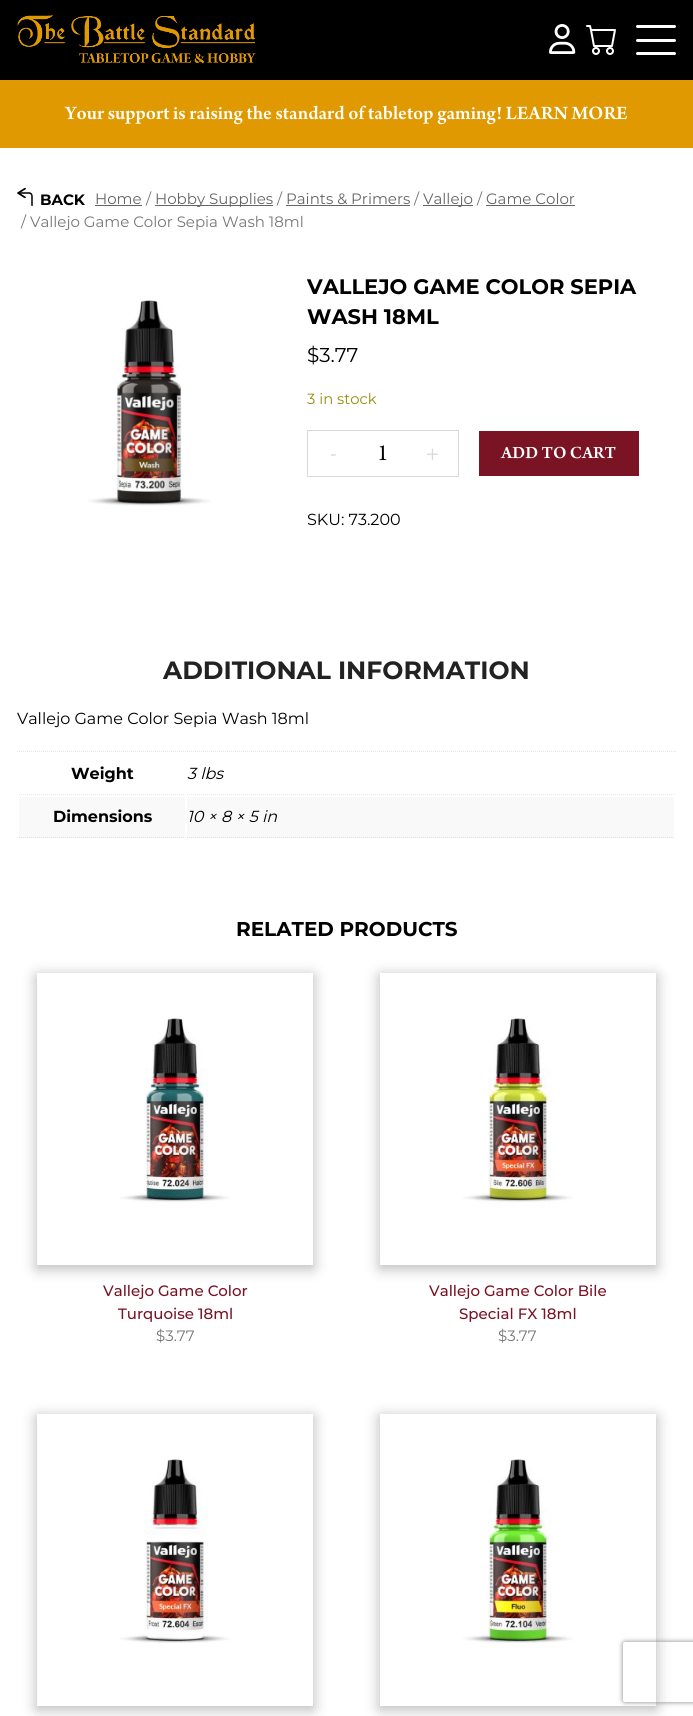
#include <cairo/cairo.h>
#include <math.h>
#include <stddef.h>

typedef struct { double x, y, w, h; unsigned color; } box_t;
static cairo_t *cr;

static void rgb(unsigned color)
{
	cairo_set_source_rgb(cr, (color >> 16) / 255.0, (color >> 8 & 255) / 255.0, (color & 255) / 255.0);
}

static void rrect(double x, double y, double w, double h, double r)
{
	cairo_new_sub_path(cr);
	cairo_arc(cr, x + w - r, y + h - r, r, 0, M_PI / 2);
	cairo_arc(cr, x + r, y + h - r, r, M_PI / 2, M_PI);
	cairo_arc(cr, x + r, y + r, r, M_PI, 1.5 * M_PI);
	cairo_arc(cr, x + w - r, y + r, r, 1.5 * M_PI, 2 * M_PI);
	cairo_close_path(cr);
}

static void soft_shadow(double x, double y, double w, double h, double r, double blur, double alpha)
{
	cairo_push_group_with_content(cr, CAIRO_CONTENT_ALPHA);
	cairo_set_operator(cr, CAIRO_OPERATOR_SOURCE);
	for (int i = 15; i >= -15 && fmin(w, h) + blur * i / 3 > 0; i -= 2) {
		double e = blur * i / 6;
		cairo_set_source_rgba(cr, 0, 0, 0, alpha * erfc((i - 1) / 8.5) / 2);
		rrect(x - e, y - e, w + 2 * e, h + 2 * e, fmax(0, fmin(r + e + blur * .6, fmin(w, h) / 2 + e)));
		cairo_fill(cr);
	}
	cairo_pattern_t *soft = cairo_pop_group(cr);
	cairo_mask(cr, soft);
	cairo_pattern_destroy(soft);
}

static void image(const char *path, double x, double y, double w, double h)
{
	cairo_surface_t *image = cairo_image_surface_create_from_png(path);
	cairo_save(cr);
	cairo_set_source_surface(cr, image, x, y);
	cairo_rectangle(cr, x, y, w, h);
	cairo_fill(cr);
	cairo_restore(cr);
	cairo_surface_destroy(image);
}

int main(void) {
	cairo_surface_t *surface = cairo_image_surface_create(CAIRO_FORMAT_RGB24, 693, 1716);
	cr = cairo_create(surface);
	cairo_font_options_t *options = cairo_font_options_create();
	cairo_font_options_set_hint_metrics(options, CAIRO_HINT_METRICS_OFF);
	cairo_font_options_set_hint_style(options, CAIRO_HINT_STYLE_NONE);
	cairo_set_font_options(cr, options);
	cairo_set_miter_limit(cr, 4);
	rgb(0xffffff);
	cairo_paint(cr);
	rgb(0x000000);
	cairo_rectangle(cr, 0, 0, 693, 80);
	cairo_fill(cr);
	image("img/1.png", 17, 15, 239, 49);
	image("img/2.png", 549, 24, 27, 30);
	image("img/3.png", 586, 25, 30, 30);
	rgb(0xffffff);
	rrect(636, 25, 40, 3, 1.5);
	cairo_fill(cr);
	rrect(636, 39, 40, 3, 1.5);
	cairo_fill(cr);
	rrect(636, 52, 40, 3, 1.5);
	cairo_fill(cr);
	rgb(0xe09900);
	cairo_rectangle(cr, 0, 80, 693, 68);
	cairo_fill(cr);
	image("img/4.png", 17, 188, 16, 18);
	{
		static const box_t items[] = {
			{95, 205, 47, 1, 0x656565},
			{155, 205, 118, 1, 0x656565},
			{286, 205, 124, 1, 0x656565},
			{423, 205, 50, 1, 0x656565},
			{486, 205, 89, 1, 0x656565},
		};
		for (size_t i = 0; i < sizeof items / sizeof *items; i++) {
			rgb(items[i].color);
			cairo_rectangle(cr, items[i].x, items[i].y, items[i].w, items[i].h);
			cairo_fill(cr);
		}
	}
	image("img/5.png", 88, 300, 123, 206);
	cairo_rectangle(cr, 307.5, 430.5, 151, 46);
	rgb(0xd9d9d9);
	cairo_set_line_width(cr, 1);
	cairo_stroke(cr);
	rgb(0x7a1424);
	cairo_rectangle(cr, 479, 431, 160, 45);
	cairo_fill(cr);
	cairo_new_path(cr);
	cairo_move_to(cr, 17, 751.5);
	cairo_line_to(cr, 676, 751.5);
	rgb(0xe6e6e6);
	cairo_set_dash(cr, (double[]){1, 1}, 2, 0);
	cairo_stroke(cr);
	cairo_new_path(cr);
	cairo_move_to(cr, 19, 794.5);
	cairo_line_to(cr, 185, 794.5);
	cairo_stroke(cr);
	cairo_new_path(cr);
	cairo_move_to(cr, 187, 794.5);
	cairo_line_to(cr, 674, 794.5);
	cairo_stroke(cr);
	rgb(0xf9f9f9);
	cairo_rectangle(cr, 19, 797, 166, 41);
	cairo_fill(cr);
	cairo_new_path(cr);
	cairo_move_to(cr, 19, 837.5);
	cairo_line_to(cr, 185, 837.5);
	rgb(0xe0e0e0);
	cairo_stroke(cr);
	rgb(0xf9f9f9);
	cairo_rectangle(cr, 187, 797, 487, 41);
	cairo_fill(cr);
	cairo_new_path(cr);
	cairo_move_to(cr, 187, 837.5);
	cairo_line_to(cr, 674, 837.5);
	rgb(0xe0e0e0);
	cairo_stroke(cr);
	cairo_save(cr);
	cairo_set_fill_rule(cr, CAIRO_FILL_RULE_EVEN_ODD);
	cairo_new_path(cr);
	cairo_move_to(cr, 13, 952);
	cairo_line_to(cr, 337, 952);
	cairo_line_to(cr, 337, 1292);
	cairo_line_to(cr, 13, 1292);
	cairo_close_path(cr);
	cairo_move_to(cr, 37, 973);
	cairo_line_to(cr, 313, 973);
	cairo_line_to(cr, 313, 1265);
	cairo_line_to(cr, 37, 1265);
	cairo_close_path(cr);
	cairo_clip(cr);
	rgb(0x000000);
	soft_shadow(37, 976, 276, 292, 0, 7.5, 0.29);
	cairo_restore(cr);
	image("img/6.png", 120, 1018, 110, 186);
	cairo_save(cr);
	cairo_set_fill_rule(cr, CAIRO_FILL_RULE_EVEN_ODD);
	cairo_new_path(cr);
	cairo_move_to(cr, 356, 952);
	cairo_line_to(cr, 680, 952);
	cairo_line_to(cr, 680, 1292);
	cairo_line_to(cr, 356, 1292);
	cairo_close_path(cr);
	cairo_move_to(cr, 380, 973);
	cairo_line_to(cr, 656, 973);
	cairo_line_to(cr, 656, 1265);
	cairo_line_to(cr, 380, 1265);
	cairo_close_path(cr);
	cairo_clip(cr);
	rgb(0x000000);
	soft_shadow(380, 976, 276, 292, 0, 7.5, 0.29);
	cairo_restore(cr);
	image("img/7.png", 463, 1018, 110, 189);
	cairo_save(cr);
	cairo_set_fill_rule(cr, CAIRO_FILL_RULE_EVEN_ODD);
	cairo_new_path(cr);
	cairo_move_to(cr, 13, 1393);
	cairo_line_to(cr, 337, 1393);
	cairo_line_to(cr, 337, 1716);
	cairo_line_to(cr, 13, 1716);
	cairo_close_path(cr);
	cairo_move_to(cr, 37, 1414);
	cairo_line_to(cr, 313, 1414);
	cairo_line_to(cr, 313, 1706);
	cairo_line_to(cr, 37, 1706);
	cairo_close_path(cr);
	cairo_clip(cr);
	rgb(0x000000);
	soft_shadow(37, 1417, 276, 292, 0, 7.5, 0.29);
	cairo_restore(cr);
	image("img/8.png", 120, 1459, 110, 184);
	cairo_save(cr);
	cairo_set_fill_rule(cr, CAIRO_FILL_RULE_EVEN_ODD);
	cairo_new_path(cr);
	cairo_move_to(cr, 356, 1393);
	cairo_line_to(cr, 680, 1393);
	cairo_line_to(cr, 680, 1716);
	cairo_line_to(cr, 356, 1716);
	cairo_close_path(cr);
	cairo_move_to(cr, 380, 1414);
	cairo_line_to(cr, 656, 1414);
	cairo_line_to(cr, 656, 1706);
	cairo_line_to(cr, 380, 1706);
	cairo_close_path(cr);
	cairo_clip(cr);
	rgb(0x000000);
	soft_shadow(380, 1417, 276, 292, 0, 7.5, 0.29);
	cairo_restore(cr);
	image("img/9.png", 463, 1459, 110, 189);
	cairo_save(cr);
	cairo_set_fill_rule(cr, CAIRO_FILL_RULE_EVEN_ODD);
	cairo_new_path(cr);
	cairo_move_to(cr, 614, 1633);
	cairo_line_to(cr, 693, 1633);
	cairo_line_to(cr, 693, 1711);
	cairo_line_to(cr, 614, 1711);
	cairo_close_path(cr);
	cairo_move_to(cr, 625, 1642);
	cairo_line_to(cr, 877, 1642);
	cairo_curve_to(cr, 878, 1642, 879, 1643, 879, 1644);
	cairo_line_to(cr, 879, 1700);
	cairo_curve_to(cr, 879, 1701, 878, 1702, 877, 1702);
	cairo_line_to(cr, 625, 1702);
	cairo_curve_to(cr, 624, 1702, 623, 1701, 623, 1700);
	cairo_line_to(cr, 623, 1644);
	cairo_curve_to(cr, 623, 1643, 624, 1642, 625, 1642);
	cairo_close_path(cr);
	cairo_clip(cr);
	rgb(0x808080);
	soft_shadow(623, 1642, 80, 60, 2, 2.5, 1);
	cairo_restore(cr);
	cairo_select_font_face(cr, "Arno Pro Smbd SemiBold", CAIRO_FONT_SLANT_NORMAL, CAIRO_FONT_WEIGHT_NORMAL);
	cairo_set_font_size(cr, 20);
	rgb(0xffffff);
	cairo_move_to(cr, 65, 119);
	cairo_show_text(cr, "Your support is raising the standard of tabletop gaming! LEARN MORE");
	cairo_select_font_face(cr, "Montserrat", CAIRO_FONT_SLANT_NORMAL, CAIRO_FONT_WEIGHT_BOLD);
	cairo_set_font_size(cr, 15);
	rgb(0x000000);
	cairo_move_to(cr, 40, 205);
	cairo_show_text(cr, "BACK");
	cairo_select_font_face(cr, "Montserrat", CAIRO_FONT_SLANT_NORMAL, CAIRO_FONT_WEIGHT_NORMAL);
	rgb(0x656565);
	cairo_move_to(cr, 95, 204);
	cairo_show_text(cr, "Home");
	rgb(0x767676);
	cairo_move_to(cr, 146, 204);
	cairo_show_text(cr, "/");
	rgb(0x656565);
	cairo_move_to(cr, 155, 204);
	cairo_show_text(cr, "Hobby Supplies");
	rgb(0x767676);
	cairo_move_to(cr, 277, 204);
	cairo_show_text(cr, "/");
	rgb(0x656565);
	cairo_move_to(cr, 286, 204);
	cairo_show_text(cr, "Paints & Primers");
	rgb(0x767676);
	cairo_move_to(cr, 414, 204);
	cairo_show_text(cr, "/");
	rgb(0x656565);
	cairo_move_to(cr, 423, 204);
	cairo_show_text(cr, "Vallejo");
	rgb(0x767676);
	cairo_move_to(cr, 477, 204);
	cairo_show_text(cr, "/");
	rgb(0x656565);
	cairo_move_to(cr, 486, 204);
	cairo_show_text(cr, "Game Color");
	rgb(0x767676);
	cairo_move_to(cr, 21, 227);
	cairo_show_text(cr, "/ Vallejo Game Color Sepia Wash 18ml");
	cairo_select_font_face(cr, "Montserrat", CAIRO_FONT_SLANT_NORMAL, CAIRO_FONT_WEIGHT_BOLD);
	cairo_set_font_size(cr, 21);
	rgb(0x000000);
	cairo_move_to(cr, 307, 294);
	cairo_show_text(cr, "VALLEJO GAME COLOR SEPIA");
	cairo_move_to(cr, 307, 324);
	cairo_show_text(cr, "WASH 18ML");
	cairo_select_font_face(cr, "Montserrat", CAIRO_FONT_SLANT_NORMAL, CAIRO_FONT_WEIGHT_NORMAL);
	cairo_set_font_size(cr, 20);
	cairo_move_to(cr, 307, 362);
	cairo_show_text(cr, "$3.77");
	cairo_set_font_size(cr, 14.75);
	rgb(0x958e09);
	cairo_move_to(cr, 307, 404);
	cairo_show_text(cr, "3 in stock");
	cairo_select_font_face(cr, "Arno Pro", CAIRO_FONT_SLANT_NORMAL, CAIRO_FONT_WEIGHT_NORMAL);
	cairo_set_font_size(cr, 24);
	rgb(0xd9d9d9);
	cairo_move_to(cr, 330, 460);
	cairo_show_text(cr, "-");
	rgb(0x000000);
	cairo_move_to(cr, 377, 460);
	cairo_show_text(cr, "1");
	rgb(0xd9d9d9);
	cairo_move_to(cr, 426, 460);
	cairo_show_text(cr, "+");
	cairo_select_font_face(cr, "Arno Pro Smbd SemiBold", CAIRO_FONT_SLANT_NORMAL, CAIRO_FONT_WEIGHT_NORMAL);
	cairo_set_font_size(cr, 18);
	rgb(0xffffff);
	cairo_move_to(cr, 501, 458);
	cairo_show_text(cr, "ADD TO CART");
	cairo_select_font_face(cr, "Montserrat", CAIRO_FONT_SLANT_NORMAL, CAIRO_FONT_WEIGHT_NORMAL);
	cairo_set_font_size(cr, 16);
	rgb(0x000000);
	cairo_move_to(cr, 307, 525);
	cairo_show_text(cr, "SKU: 73.200");
	cairo_select_font_face(cr, "Montserrat", CAIRO_FONT_SLANT_NORMAL, CAIRO_FONT_WEIGHT_BOLD);
	cairo_set_font_size(cr, 25);
	rgb(0x222222);
	cairo_move_to(cr, 163, 679);
	cairo_show_text(cr, "ADDITIONAL INFORMATION");
	cairo_select_font_face(cr, "Montserrat", CAIRO_FONT_SLANT_NORMAL, CAIRO_FONT_WEIGHT_NORMAL);
	cairo_set_font_size(cr, 16);
	rgb(0x000000);
	cairo_move_to(cr, 17, 724);
	cairo_show_text(cr, "Vallejo Game Color Sepia Wash 18ml");
	cairo_select_font_face(cr, "Montserrat", CAIRO_FONT_SLANT_NORMAL, CAIRO_FONT_WEIGHT_BOLD);
	cairo_move_to(cr, 71, 779);
	cairo_show_text(cr, "Weight");
	cairo_select_font_face(cr, "Montserrat", CAIRO_FONT_SLANT_ITALIC, CAIRO_FONT_WEIGHT_NORMAL);
	cairo_move_to(cr, 187, 779);
	cairo_show_text(cr, "3 lbs");
	cairo_select_font_face(cr, "Montserrat", CAIRO_FONT_SLANT_NORMAL, CAIRO_FONT_WEIGHT_BOLD);
	cairo_move_to(cr, 53, 822);
	cairo_show_text(cr, "Dimensions");
	cairo_select_font_face(cr, "Montserrat", CAIRO_FONT_SLANT_ITALIC, CAIRO_FONT_WEIGHT_NORMAL);
	cairo_move_to(cr, 187, 822);
	cairo_show_text(cr, "10 × 8 × 5 in");
	cairo_select_font_face(cr, "Montserrat", CAIRO_FONT_SLANT_NORMAL, CAIRO_FONT_WEIGHT_BOLD);
	cairo_set_font_size(cr, 20);
	cairo_move_to(cr, 236, 936);
	cairo_show_text(cr, "RELATED PRODUCTS");
	cairo_select_font_face(cr, "Montserrat Medium", CAIRO_FONT_SLANT_NORMAL, CAIRO_FONT_WEIGHT_NORMAL);
	cairo_set_font_size(cr, 15);
	rgb(0x7a1424);
	cairo_move_to(cr, 103, 1296);
	cairo_show_text(cr, "Vallejo Game Color");
	cairo_move_to(cr, 118, 1319);
	cairo_show_text(cr, "Turquoise 18ml");
	cairo_select_font_face(cr, "Montserrat", CAIRO_FONT_SLANT_NORMAL, CAIRO_FONT_WEIGHT_NORMAL);
	rgb(0x767676);
	cairo_move_to(cr, 156, 1341);
	cairo_show_text(cr, "$3.77");
	cairo_select_font_face(cr, "Montserrat Medium", CAIRO_FONT_SLANT_NORMAL, CAIRO_FONT_WEIGHT_NORMAL);
	rgb(0x7a1424);
	cairo_move_to(cr, 429, 1296);
	cairo_show_text(cr, "Vallejo Game Color Bile");
	cairo_move_to(cr, 459, 1319);
	cairo_show_text(cr, "Special FX 18ml");
	cairo_select_font_face(cr, "Montserrat", CAIRO_FONT_SLANT_NORMAL, CAIRO_FONT_WEIGHT_NORMAL);
	rgb(0x767676);
	cairo_move_to(cr, 498, 1341);
	cairo_show_text(cr, "$3.77");
	cairo_surface_write_to_png(surface, "page.png");
	cairo_font_options_destroy(options);
	cairo_destroy(cr);
	cairo_surface_destroy(surface);
	return 0;
}
